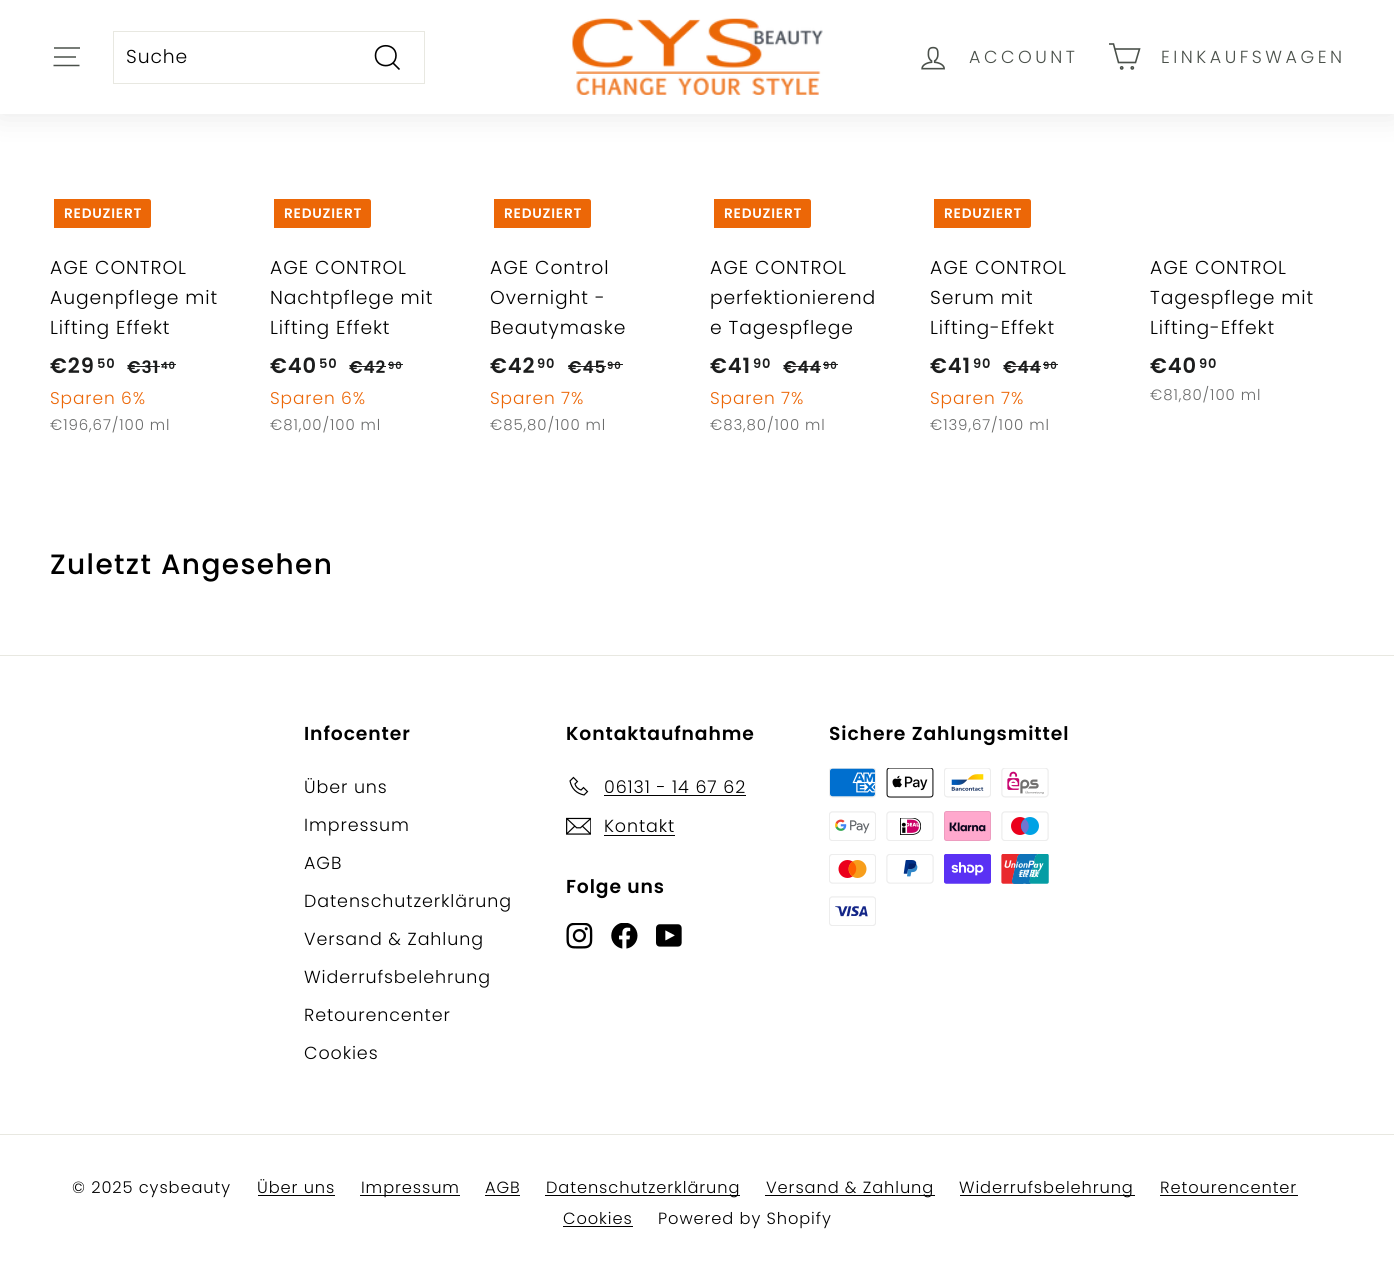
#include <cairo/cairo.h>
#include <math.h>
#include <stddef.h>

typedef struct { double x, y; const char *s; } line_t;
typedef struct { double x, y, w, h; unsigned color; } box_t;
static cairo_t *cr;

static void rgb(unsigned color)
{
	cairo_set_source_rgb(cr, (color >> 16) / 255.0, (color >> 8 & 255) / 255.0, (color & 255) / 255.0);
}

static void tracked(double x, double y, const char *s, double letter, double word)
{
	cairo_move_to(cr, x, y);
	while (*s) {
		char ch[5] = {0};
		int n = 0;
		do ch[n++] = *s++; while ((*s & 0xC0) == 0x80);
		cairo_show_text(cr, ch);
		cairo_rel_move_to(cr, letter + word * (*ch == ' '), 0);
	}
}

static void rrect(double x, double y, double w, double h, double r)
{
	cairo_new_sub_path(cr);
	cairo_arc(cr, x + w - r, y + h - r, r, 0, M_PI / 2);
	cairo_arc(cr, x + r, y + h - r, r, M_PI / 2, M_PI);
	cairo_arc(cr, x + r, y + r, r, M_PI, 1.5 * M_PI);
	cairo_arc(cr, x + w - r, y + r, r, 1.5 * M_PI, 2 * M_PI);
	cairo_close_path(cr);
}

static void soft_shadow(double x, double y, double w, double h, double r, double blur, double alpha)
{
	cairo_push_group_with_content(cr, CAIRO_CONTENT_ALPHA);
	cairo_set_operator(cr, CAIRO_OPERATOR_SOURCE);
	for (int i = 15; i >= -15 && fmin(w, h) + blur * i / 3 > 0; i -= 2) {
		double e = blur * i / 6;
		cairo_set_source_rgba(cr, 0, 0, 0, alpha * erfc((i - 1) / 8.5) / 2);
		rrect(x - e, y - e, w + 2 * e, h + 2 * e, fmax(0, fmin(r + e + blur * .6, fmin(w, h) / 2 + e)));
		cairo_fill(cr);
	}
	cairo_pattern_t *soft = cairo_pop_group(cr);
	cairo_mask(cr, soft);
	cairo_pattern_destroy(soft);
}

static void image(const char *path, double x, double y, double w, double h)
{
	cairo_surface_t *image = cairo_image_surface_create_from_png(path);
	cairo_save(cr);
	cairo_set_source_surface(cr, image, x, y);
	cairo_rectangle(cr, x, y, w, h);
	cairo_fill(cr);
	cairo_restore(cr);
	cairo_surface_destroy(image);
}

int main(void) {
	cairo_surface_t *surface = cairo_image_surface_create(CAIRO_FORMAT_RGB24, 1394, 1272);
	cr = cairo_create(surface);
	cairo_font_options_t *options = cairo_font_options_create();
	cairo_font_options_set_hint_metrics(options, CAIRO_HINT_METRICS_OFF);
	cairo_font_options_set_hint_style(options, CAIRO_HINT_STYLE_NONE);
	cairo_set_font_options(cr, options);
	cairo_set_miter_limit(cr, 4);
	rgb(0xffffff);
	cairo_paint(cr);
	rgb(0x000000);
	soft_shadow(0, 0, 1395, 114, 0, 15.5, 0.1);
	{
		static const box_t items[] = {
			{0, 0, 1394, 114, 0xffffff},
			{54, 47, 26, 2, 0x777c77},
			{54, 56, 22, 2, 0x777c77},
		};
		for (size_t i = 0; i < sizeof items / sizeof *items; i++) {
			rgb(items[i].color);
			cairo_rectangle(cr, items[i].x, items[i].y, items[i].w, items[i].h);
			cairo_fill(cr);
		}
	}
	cairo_new_path(cr);
	cairo_move_to(cr, 53.5, 65.5);
	cairo_line_to(cr, 79.5, 65.5);
	rgb(0x4a504a);
	cairo_set_line_width(cr, 1.5);
	cairo_stroke(cr);
	cairo_rectangle(cr, 113.5, 31.5, 311, 52);
	rgb(0xe8e8e1);
	cairo_set_line_width(cr, 1);
	cairo_stroke(cr);
	cairo_new_path(cr);
	cairo_move_to(cr, 396, 55.5);
	cairo_curve_to(cr, 396, 69, 375.5, 69, 375.5, 55.5);
	cairo_curve_to(cr, 375.5, 42.5, 396, 42.5, 396, 55.5);
	cairo_close_path(cr);
	cairo_move_to(cr, 399.5, 69.5);
	cairo_line_to(cr, 393, 63);
	rgb(0x000000);
	cairo_set_line_width(cr, 1.6);
	cairo_stroke(cr);
	image("img/1.png", 572, 18, 251, 77);
	image("img/2.png", 921, 46, 24, 24);
	cairo_new_path(cr);
	cairo_move_to(cr, 1115, 49);
	cairo_line_to(cr, 1139.5, 49);
	cairo_line_to(cr, 1135.5, 62.5);
	cairo_line_to(cr, 1118.5, 62.5);
	cairo_line_to(cr, 1113.5, 44);
	cairo_line_to(cr, 1109, 44);
	rgb(0x4a504a);
	cairo_stroke(cr);
	cairo_arc(cr, 1121.7, 67.9, 1.1, 0, 2 * M_PI);
	cairo_stroke(cr);
	cairo_arc(cr, 1132.3, 67.9, 1.1, 0, 2 * M_PI);
	cairo_stroke(cr);
	rgb(0xec6707);
	cairo_new_path(cr);
	cairo_move_to(cr, 54, 199);
	cairo_line_to(cr, 148.5, 199);
	cairo_curve_to(cr, 150, 199, 151, 200, 151, 201.5);
	cairo_line_to(cr, 151, 225.5);
	cairo_curve_to(cr, 151, 227, 150, 228, 148.5, 228);
	cairo_line_to(cr, 54, 228);
	cairo_close_path(cr);
	cairo_fill(cr);
	rgb(0x1c1d1d);
	cairo_rectangle(cr, 128, 366, 32, 1);
	cairo_fill(cr);
	cairo_rectangle(cr, 161, 364, 15, 1);
	cairo_fill(cr);
	rgb(0xec6707);
	cairo_new_path(cr);
	cairo_move_to(cr, 274, 199);
	cairo_line_to(cr, 368.5, 199);
	cairo_curve_to(cr, 370, 199, 371, 200, 371, 201.5);
	cairo_line_to(cr, 371, 225.5);
	cairo_curve_to(cr, 371, 227, 370, 228, 368.5, 228);
	cairo_line_to(cr, 274, 228);
	cairo_close_path(cr);
	cairo_fill(cr);
	rgb(0x1c1d1d);
	cairo_rectangle(cr, 350, 366, 36, 1);
	cairo_fill(cr);
	cairo_rectangle(cr, 388, 364, 15, 1);
	cairo_fill(cr);
	rgb(0xec6707);
	cairo_new_path(cr);
	cairo_move_to(cr, 494, 199);
	cairo_line_to(cr, 588.5, 199);
	cairo_curve_to(cr, 590, 199, 591, 200, 591, 201.5);
	cairo_line_to(cr, 591, 225.5);
	cairo_curve_to(cr, 591, 227, 590, 228, 588.5, 228);
	cairo_line_to(cr, 494, 228);
	cairo_close_path(cr);
	cairo_fill(cr);
	rgb(0x1c1d1d);
	cairo_rectangle(cr, 568, 366, 38, 1);
	cairo_fill(cr);
	cairo_rectangle(cr, 608, 364, 15, 1);
	cairo_fill(cr);
	rgb(0xec6707);
	cairo_new_path(cr);
	cairo_move_to(cr, 714, 199);
	cairo_line_to(cr, 808.5, 199);
	cairo_curve_to(cr, 810, 199, 811, 200, 811, 201.5);
	cairo_line_to(cr, 811, 225.5);
	cairo_curve_to(cr, 811, 227, 810, 228, 808.5, 228);
	cairo_line_to(cr, 714, 228);
	cairo_close_path(cr);
	cairo_fill(cr);
	rgb(0x1c1d1d);
	cairo_rectangle(cr, 784, 366, 37, 1);
	cairo_fill(cr);
	cairo_rectangle(cr, 823, 364, 15, 1);
	cairo_fill(cr);
	rgb(0xec6707);
	cairo_new_path(cr);
	cairo_move_to(cr, 934, 199);
	cairo_line_to(cr, 1028.5, 199);
	cairo_curve_to(cr, 1030, 199, 1031, 200, 1031, 201.5);
	cairo_line_to(cr, 1031, 225.5);
	cairo_curve_to(cr, 1031, 227, 1030, 228, 1028.5, 228);
	cairo_line_to(cr, 934, 228);
	cairo_close_path(cr);
	cairo_fill(cr);
	{
		static const box_t items[] = {
			{1004, 366, 37, 1, 0x1c1d1d},
			{1043, 364, 15, 1, 0x1c1d1d},
			{0, 655, 1394, 1, 0xe8e8e1},
		};
		for (size_t i = 0; i < sizeof items / sizeof *items; i++) {
			rgb(items[i].color);
			cairo_rectangle(cr, items[i].x, items[i].y, items[i].w, items[i].h);
			cairo_fill(cr);
		}
	}
	image("img/3.png", 569, 776, 20, 20);
	rgb(0x000000);
	cairo_rectangle(cr, 604, 795, 142, 1);
	cairo_fill(cr);
	image("img/4.png", 566, 817, 25, 18);
	cairo_rectangle(cr, 604, 835, 71, 1);
	cairo_fill(cr);
	image("img/5.png", 566, 923, 27, 26);
	image("img/6.png", 611, 923, 27, 26);
	image("img/7.png", 656, 924, 26, 23);
	image("img/8.png", 829, 768, 47, 30);
	image("img/9.png", 886, 768, 48, 30);
	image("img/10.png", 944, 768, 47, 30);
	image("img/11.png", 1001, 768, 48, 30);
	image("img/12.png", 829, 811, 47, 30);
	image("img/13.png", 886, 811, 48, 30);
	image("img/14.png", 944, 811, 47, 30);
	image("img/15.png", 1001, 811, 48, 30);
	image("img/16.png", 829, 854, 47, 30);
	image("img/17.png", 886, 854, 48, 30);
	image("img/18.png", 944, 854, 47, 30);
	image("img/19.png", 1001, 854, 48, 30);
	image("img/20.png", 829, 896, 47, 30);
	{
		static const box_t items[] = {
			{0, 1134, 1394, 1, 0xe8e8e1},
			{258, 1195, 77, 1, 0x000000},
			{360, 1195, 100, 1, 0x000000},
			{485, 1195, 35, 1, 0x000000},
			{545, 1195, 195, 1, 0x000000},
			{765, 1195, 170, 1, 0x000000},
			{960, 1195, 175, 1, 0x000000},
			{1160, 1195, 138, 1, 0x000000},
			{563, 1226, 70, 1, 0x000000},
		};
		for (size_t i = 0; i < sizeof items / sizeof *items; i++) {
			rgb(items[i].color);
			cairo_rectangle(cr, items[i].x, items[i].y, items[i].w, items[i].h);
			cairo_fill(cr);
		}
	}
	cairo_select_font_face(cr, "Poppins Light", CAIRO_FONT_SLANT_NORMAL, CAIRO_FONT_WEIGHT_NORMAL);
	cairo_set_font_size(cr, 18.75);
	tracked(126, 63, "Suche", 0.9, 0);
	cairo_set_font_size(cr, 17.5);
	rgb(0x4a504a);
	tracked(969, 63, "ACCOUNT", 3.5, 0);
	tracked(1161, 63, "EINKAUFSWAGEN", 3.5, 0);
	cairo_select_font_face(cr, "Poppins SemiBold", CAIRO_FONT_SLANT_NORMAL, CAIRO_FONT_WEIGHT_NORMAL);
	cairo_set_font_size(cr, 13.75);
	rgb(0xffffff);
	tracked(64, 218, "REDUZIERT", 0.75, 0);
	cairo_select_font_face(cr, "Poppins Light", CAIRO_FONT_SLANT_NORMAL, CAIRO_FONT_WEIGHT_NORMAL);
	cairo_set_font_size(cr, 18.75);
	rgb(0x000000);
	{
		static const line_t items[] = {
			{50, 274, "AGE CONTROL"},
			{50, 304, "Augenpflege mit"},
			{50, 334, "Lifting Effekt"},
		};
		for (size_t i = 0; i < sizeof items / sizeof *items; i++) {
			tracked(items[i].x, items[i].y, items[i].s, 0.9, 0);
		}
	}
	cairo_select_font_face(cr, "Poppins SemiBold", CAIRO_FONT_SLANT_NORMAL, CAIRO_FONT_WEIGHT_NORMAL);
	cairo_set_font_size(cr, 21);
	rgb(0x1c1d1d);
	tracked(50, 373, "€29", 0.9, 0);
	cairo_set_font_size(cr, 13);
	tracked(97, 368, "50", 0.9, 0);
	cairo_set_font_size(cr, 17);
	tracked(127, 373, "€31", 0.9, 0);
	cairo_set_font_size(cr, 10);
	tracked(161, 369, "40", 0.9, 0);
	cairo_select_font_face(cr, "Poppins Light", CAIRO_FONT_SLANT_NORMAL, CAIRO_FONT_WEIGHT_NORMAL);
	cairo_set_font_size(cr, 17);
	rgb(0xec6707);
	tracked(50, 404, "Sparen 6%", 0.9, 0);
	cairo_set_font_size(cr, 15);
	rgb(0x6b6c6c);
	tracked(50, 430, "€196,67/100 ml", 0.9, 0);
	cairo_select_font_face(cr, "Poppins SemiBold", CAIRO_FONT_SLANT_NORMAL, CAIRO_FONT_WEIGHT_NORMAL);
	cairo_set_font_size(cr, 13.75);
	rgb(0xffffff);
	tracked(284, 218, "REDUZIERT", 0.75, 0);
	cairo_select_font_face(cr, "Poppins Light", CAIRO_FONT_SLANT_NORMAL, CAIRO_FONT_WEIGHT_NORMAL);
	cairo_set_font_size(cr, 18.75);
	rgb(0x000000);
	{
		static const line_t items[] = {
			{270, 274, "AGE CONTROL"},
			{270, 304, "Nachtpflege mit"},
			{270, 334, "Lifting Effekt"},
		};
		for (size_t i = 0; i < sizeof items / sizeof *items; i++) {
			tracked(items[i].x, items[i].y, items[i].s, 0.9, 0);
		}
	}
	cairo_select_font_face(cr, "Poppins SemiBold", CAIRO_FONT_SLANT_NORMAL, CAIRO_FONT_WEIGHT_NORMAL);
	cairo_set_font_size(cr, 21);
	rgb(0x1c1d1d);
	tracked(270, 373, "€40", 0.9, 0);
	cairo_set_font_size(cr, 13);
	tracked(319, 368, "50", 0.9, 0);
	cairo_set_font_size(cr, 17);
	tracked(349, 373, "€42", 0.9, 0);
	cairo_set_font_size(cr, 10);
	tracked(388, 369, "90", 0.9, 0);
	cairo_select_font_face(cr, "Poppins Light", CAIRO_FONT_SLANT_NORMAL, CAIRO_FONT_WEIGHT_NORMAL);
	cairo_set_font_size(cr, 17);
	rgb(0xec6707);
	tracked(270, 404, "Sparen 6%", 0.9, 0);
	cairo_set_font_size(cr, 15);
	rgb(0x6b6c6c);
	tracked(270, 430, "€81,00/100 ml", 0.9, 0);
	cairo_select_font_face(cr, "Poppins SemiBold", CAIRO_FONT_SLANT_NORMAL, CAIRO_FONT_WEIGHT_NORMAL);
	cairo_set_font_size(cr, 13.75);
	rgb(0xffffff);
	tracked(504, 218, "REDUZIERT", 0.75, 0);
	cairo_select_font_face(cr, "Poppins Light", CAIRO_FONT_SLANT_NORMAL, CAIRO_FONT_WEIGHT_NORMAL);
	cairo_set_font_size(cr, 18.75);
	rgb(0x000000);
	{
		static const line_t items[] = {
			{490, 274, "AGE Control"},
			{490, 304, "Overnight -"},
			{490, 334, "Beautymaske"},
		};
		for (size_t i = 0; i < sizeof items / sizeof *items; i++) {
			tracked(items[i].x, items[i].y, items[i].s, 0.9, 0);
		}
	}
	cairo_select_font_face(cr, "Poppins SemiBold", CAIRO_FONT_SLANT_NORMAL, CAIRO_FONT_WEIGHT_NORMAL);
	cairo_set_font_size(cr, 21);
	rgb(0x1c1d1d);
	tracked(490, 373, "€42", 0.9, 0);
	cairo_set_font_size(cr, 13);
	tracked(537, 368, "90", 0.9, 0);
	cairo_set_font_size(cr, 17);
	tracked(568, 373, "€45", 0.9, 0);
	cairo_set_font_size(cr, 10);
	tracked(607, 369, "90", 0.9, 0);
	cairo_select_font_face(cr, "Poppins Light", CAIRO_FONT_SLANT_NORMAL, CAIRO_FONT_WEIGHT_NORMAL);
	cairo_set_font_size(cr, 17);
	rgb(0xec6707);
	tracked(490, 404, "Sparen 7%", 0.9, 0);
	cairo_set_font_size(cr, 15);
	rgb(0x6b6c6c);
	tracked(490, 430, "€85,80/100 ml", 0.9, 0);
	cairo_select_font_face(cr, "Poppins SemiBold", CAIRO_FONT_SLANT_NORMAL, CAIRO_FONT_WEIGHT_NORMAL);
	cairo_set_font_size(cr, 13.75);
	rgb(0xffffff);
	tracked(724, 218, "REDUZIERT", 0.75, 0);
	cairo_select_font_face(cr, "Poppins Light", CAIRO_FONT_SLANT_NORMAL, CAIRO_FONT_WEIGHT_NORMAL);
	cairo_set_font_size(cr, 18.75);
	rgb(0x000000);
	{
		static const line_t items[] = {
			{710, 274, "AGE CONTROL"},
			{710, 304, "perfektionierend"},
			{710, 334, "e Tagespflege"},
		};
		for (size_t i = 0; i < sizeof items / sizeof *items; i++) {
			tracked(items[i].x, items[i].y, items[i].s, 0.9, 0);
		}
	}
	cairo_select_font_face(cr, "Poppins SemiBold", CAIRO_FONT_SLANT_NORMAL, CAIRO_FONT_WEIGHT_NORMAL);
	cairo_set_font_size(cr, 21);
	rgb(0x1c1d1d);
	tracked(710, 373, "€41", 0.9, 0);
	cairo_set_font_size(cr, 13);
	tracked(753, 368, "90", 0.9, 0);
	cairo_set_font_size(cr, 17);
	tracked(783, 373, "€44", 0.9, 0);
	cairo_set_font_size(cr, 10);
	tracked(823, 369, "90", 0.9, 0);
	cairo_select_font_face(cr, "Poppins Light", CAIRO_FONT_SLANT_NORMAL, CAIRO_FONT_WEIGHT_NORMAL);
	cairo_set_font_size(cr, 17);
	rgb(0xec6707);
	tracked(710, 404, "Sparen 7%", 0.9, 0);
	cairo_set_font_size(cr, 15);
	rgb(0x6b6c6c);
	tracked(710, 430, "€83,80/100 ml", 0.9, 0);
	cairo_select_font_face(cr, "Poppins SemiBold", CAIRO_FONT_SLANT_NORMAL, CAIRO_FONT_WEIGHT_NORMAL);
	cairo_set_font_size(cr, 13.75);
	rgb(0xffffff);
	tracked(944, 218, "REDUZIERT", 0.75, 0);
	cairo_select_font_face(cr, "Poppins Light", CAIRO_FONT_SLANT_NORMAL, CAIRO_FONT_WEIGHT_NORMAL);
	cairo_set_font_size(cr, 18.75);
	rgb(0x000000);
	{
		static const line_t items[] = {
			{930, 274, "AGE CONTROL"},
			{930, 304, "Serum mit"},
			{930, 334, "Lifting-Effekt"},
		};
		for (size_t i = 0; i < sizeof items / sizeof *items; i++) {
			tracked(items[i].x, items[i].y, items[i].s, 0.9, 0);
		}
	}
	cairo_select_font_face(cr, "Poppins SemiBold", CAIRO_FONT_SLANT_NORMAL, CAIRO_FONT_WEIGHT_NORMAL);
	cairo_set_font_size(cr, 21);
	rgb(0x1c1d1d);
	tracked(930, 373, "€41", 0.9, 0);
	cairo_set_font_size(cr, 13);
	tracked(973, 368, "90", 0.9, 0);
	cairo_set_font_size(cr, 17);
	tracked(1003, 373, "€44", 0.9, 0);
	cairo_set_font_size(cr, 10);
	tracked(1043, 369, "90", 0.9, 0);
	cairo_select_font_face(cr, "Poppins Light", CAIRO_FONT_SLANT_NORMAL, CAIRO_FONT_WEIGHT_NORMAL);
	cairo_set_font_size(cr, 17);
	rgb(0xec6707);
	tracked(930, 404, "Sparen 7%", 0.9, 0);
	cairo_set_font_size(cr, 15);
	rgb(0x6b6c6c);
	tracked(930, 430, "€139,67/100 ml", 0.9, 0);
	cairo_set_font_size(cr, 18.75);
	rgb(0x000000);
	{
		static const line_t items[] = {
			{1150, 274, "AGE CONTROL"},
			{1150, 304, "Tagespflege mit"},
			{1150, 334, "Lifting-Effekt"},
		};
		for (size_t i = 0; i < sizeof items / sizeof *items; i++) {
			tracked(items[i].x, items[i].y, items[i].s, 0.9, 0);
		}
	}
	cairo_select_font_face(cr, "Poppins SemiBold", CAIRO_FONT_SLANT_NORMAL, CAIRO_FONT_WEIGHT_NORMAL);
	cairo_set_font_size(cr, 21);
	rgb(0x1c1d1d);
	tracked(1150, 373, "€40", 0.9, 0);
	cairo_set_font_size(cr, 13);
	tracked(1199, 368, "90", 0.9, 0);
	cairo_select_font_face(cr, "Poppins Light", CAIRO_FONT_SLANT_NORMAL, CAIRO_FONT_WEIGHT_NORMAL);
	cairo_set_font_size(cr, 15);
	rgb(0x6b6c6c);
	tracked(1150, 400, "€81,80/100 ml", 0.9, 0);
	cairo_select_font_face(cr, "Poppins Medium", CAIRO_FONT_SLANT_NORMAL, CAIRO_FONT_WEIGHT_NORMAL);
	cairo_set_font_size(cr, 28);
	rgb(0x000000);
	tracked(50, 574, "Zuletzt Angesehen", 1.4, 0);
	cairo_select_font_face(cr, "Poppins SemiBold", CAIRO_FONT_SLANT_NORMAL, CAIRO_FONT_WEIGHT_NORMAL);
	cairo_set_font_size(cr, 18.75);
	tracked(304, 740, "Infocenter", 0.9, 0);
	cairo_select_font_face(cr, "Poppins Light", CAIRO_FONT_SLANT_NORMAL, CAIRO_FONT_WEIGHT_NORMAL);
	cairo_set_font_size(cr, 17.5);
	{
		static const line_t items[] = {
			{304, 793, "Über uns"},
			{304, 831, "Impressum"},
			{304, 869, "AGB"},
			{304, 907, "Datenschutzerklärung"},
			{304, 945, "Versand & Zahlung"},
			{304, 983, "Widerrufsbelehrung"},
			{304, 1021, "Retourencenter"},
			{304, 1059, "Cookies"},
		};
		for (size_t i = 0; i < sizeof items / sizeof *items; i++) {
			tracked(items[i].x, items[i].y, items[i].s, 0.9, 0);
		}
	}
	cairo_select_font_face(cr, "Poppins SemiBold", CAIRO_FONT_SLANT_NORMAL, CAIRO_FONT_WEIGHT_NORMAL);
	cairo_set_font_size(cr, 18.75);
	tracked(566, 740, "Kontaktaufnahme", 0.9, 0);
	cairo_select_font_face(cr, "Poppins Light", CAIRO_FONT_SLANT_NORMAL, CAIRO_FONT_WEIGHT_NORMAL);
	cairo_set_font_size(cr, 17.5);
	tracked(604, 793, "06131 - 14 67 62", 0.9, 0);
	tracked(604, 832, "Kontakt", 0.9, 0);
	cairo_select_font_face(cr, "Poppins SemiBold", CAIRO_FONT_SLANT_NORMAL, CAIRO_FONT_WEIGHT_NORMAL);
	cairo_set_font_size(cr, 18.75);
	tracked(566, 893, "Folge uns", 0.9, 0);
	tracked(829, 740, "Sichere Zahlungsmittel", 0.9, 0);
	cairo_select_font_face(cr, "Poppins Light", CAIRO_FONT_SLANT_NORMAL, CAIRO_FONT_WEIGHT_NORMAL);
	cairo_set_font_size(cr, 16.25);
	{
		static const line_t items[] = {
			{72, 1193, "© 2025 cysbeauty"},
			{257, 1193, "Über uns"},
			{361, 1193, "Impressum"},
			{485, 1193, "AGB"},
			{546, 1193, "Datenschutzerklärung"},
			{766, 1193, "Versand & Zahlung"},
			{959, 1193, "Widerrufsbelehrung"},
			{1160, 1193, "Retourencenter"},
			{563, 1224, "Cookies"},
			{658, 1224, "Powered by Shopify"},
		};
		for (size_t i = 0; i < sizeof items / sizeof *items; i++) {
			tracked(items[i].x, items[i].y, items[i].s, 0.9, 0);
		}
	}
	cairo_surface_write_to_png(surface, "page.png");
	cairo_font_options_destroy(options);
	cairo_destroy(cr);
	cairo_surface_destroy(surface);
	return 0;
}
